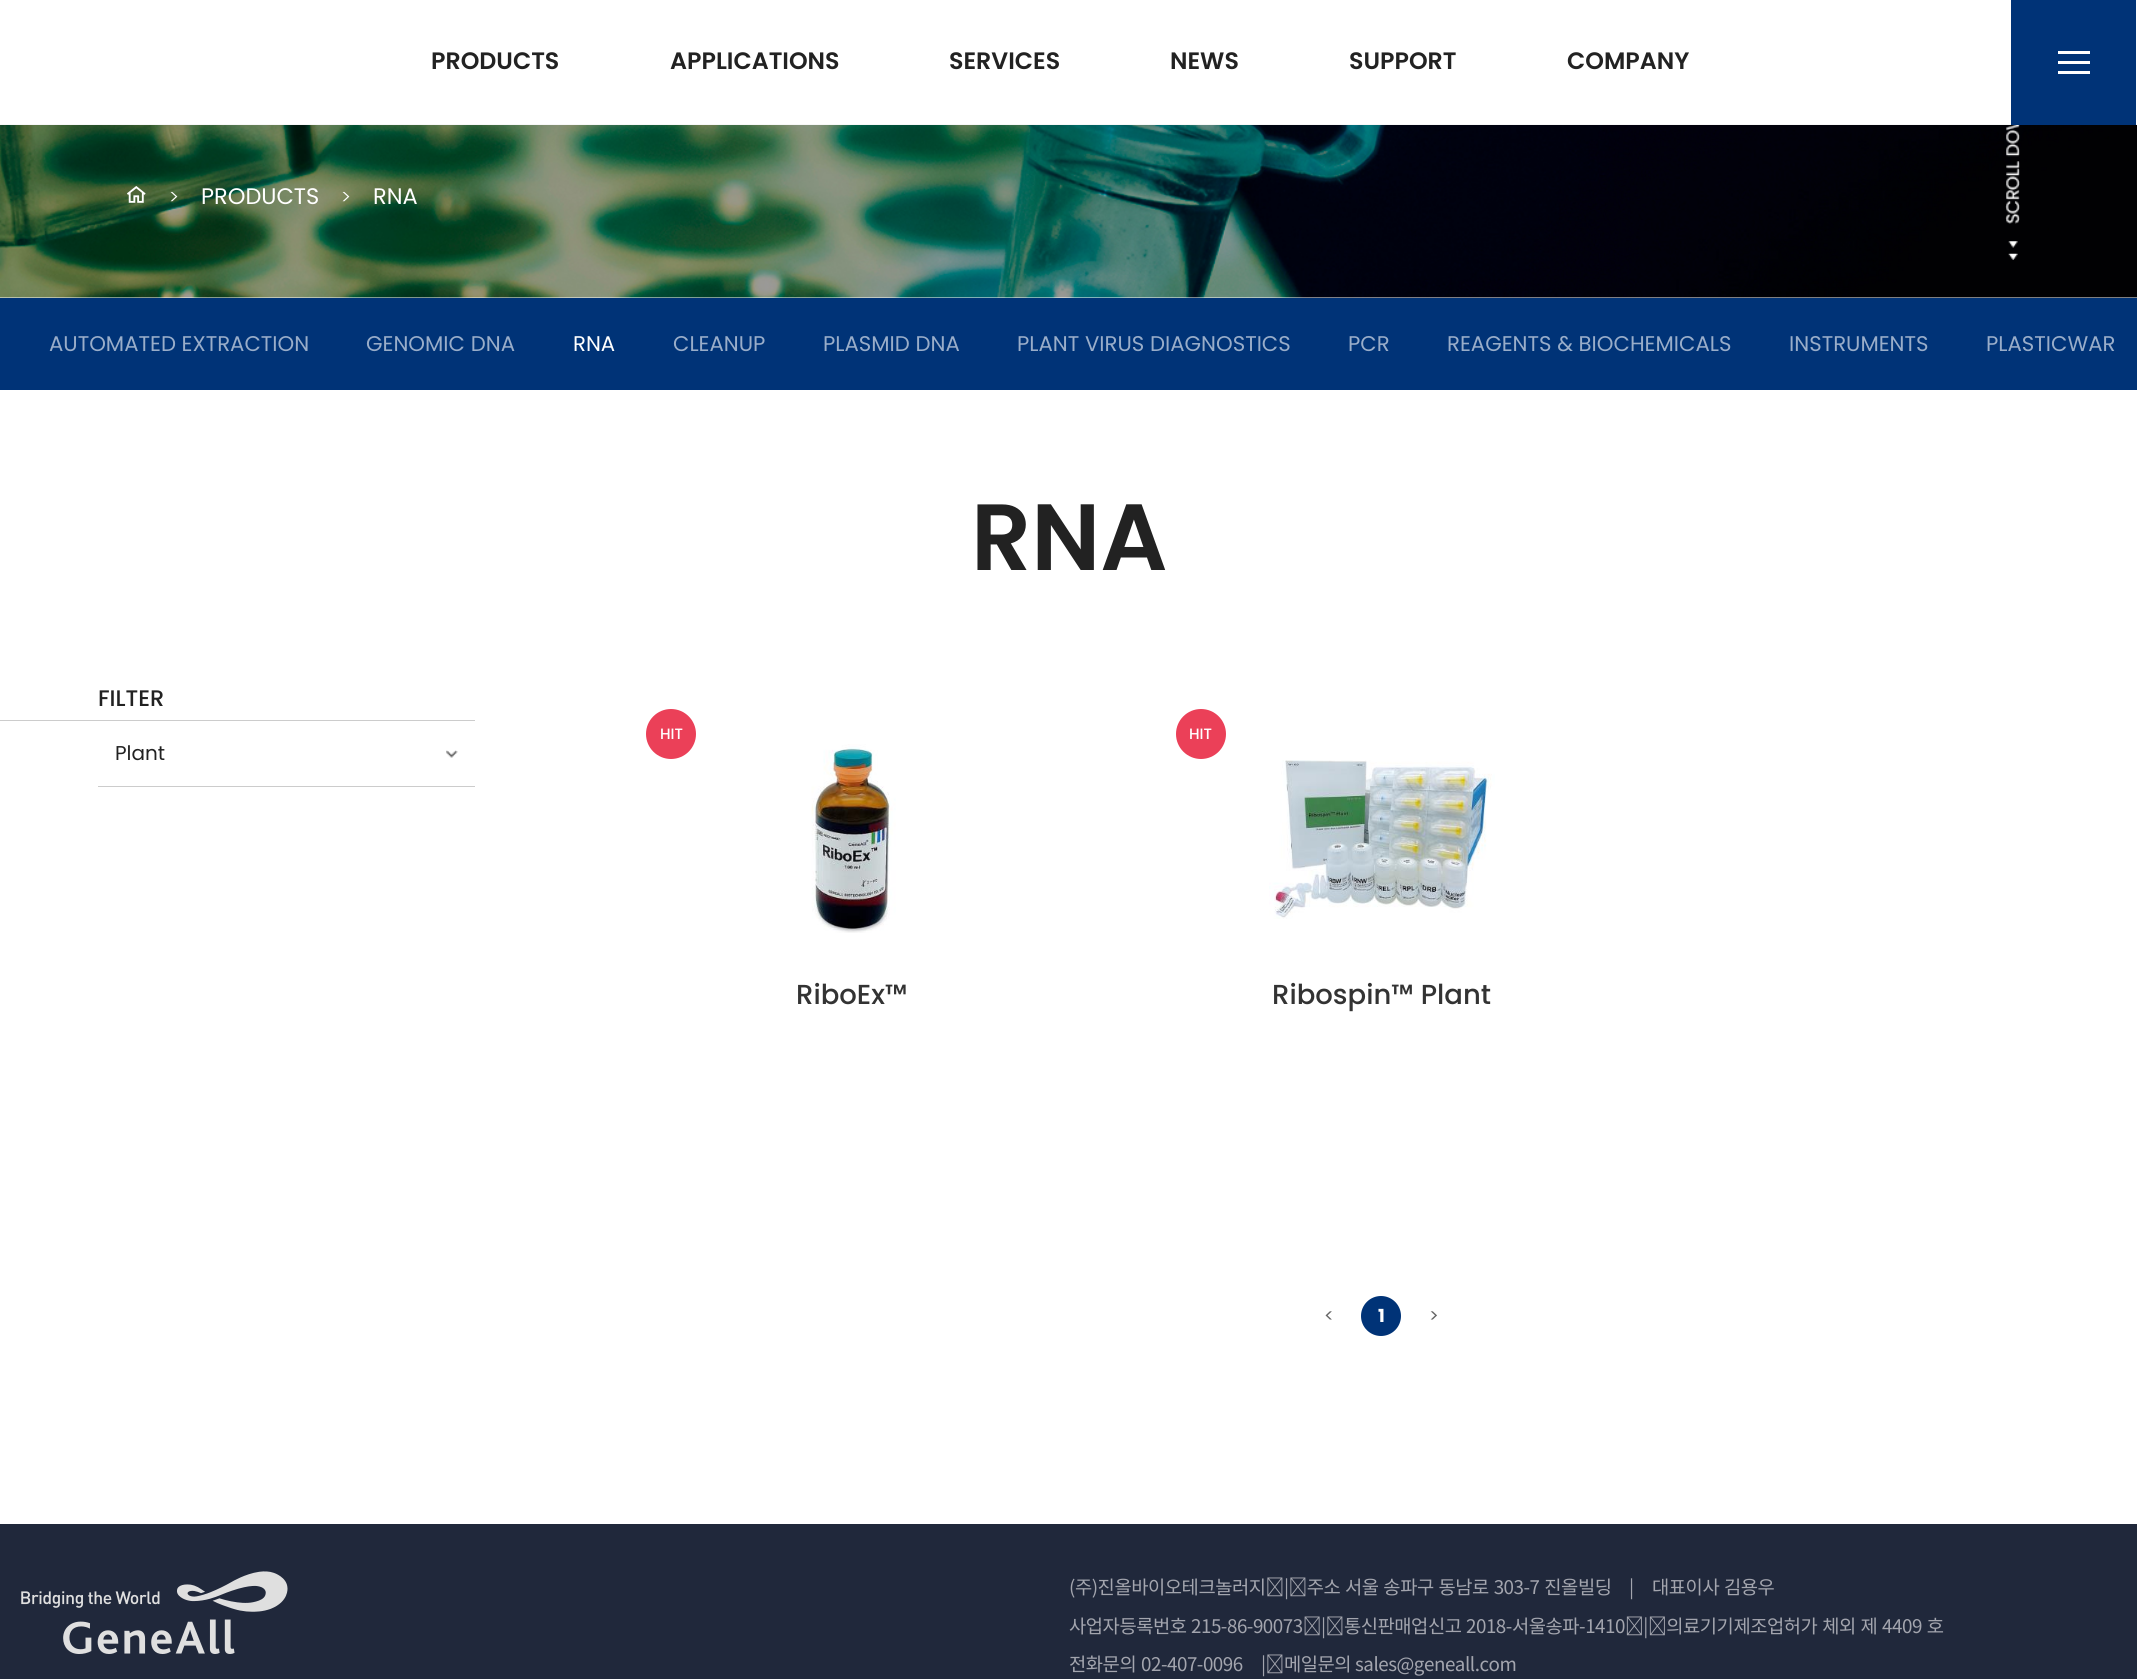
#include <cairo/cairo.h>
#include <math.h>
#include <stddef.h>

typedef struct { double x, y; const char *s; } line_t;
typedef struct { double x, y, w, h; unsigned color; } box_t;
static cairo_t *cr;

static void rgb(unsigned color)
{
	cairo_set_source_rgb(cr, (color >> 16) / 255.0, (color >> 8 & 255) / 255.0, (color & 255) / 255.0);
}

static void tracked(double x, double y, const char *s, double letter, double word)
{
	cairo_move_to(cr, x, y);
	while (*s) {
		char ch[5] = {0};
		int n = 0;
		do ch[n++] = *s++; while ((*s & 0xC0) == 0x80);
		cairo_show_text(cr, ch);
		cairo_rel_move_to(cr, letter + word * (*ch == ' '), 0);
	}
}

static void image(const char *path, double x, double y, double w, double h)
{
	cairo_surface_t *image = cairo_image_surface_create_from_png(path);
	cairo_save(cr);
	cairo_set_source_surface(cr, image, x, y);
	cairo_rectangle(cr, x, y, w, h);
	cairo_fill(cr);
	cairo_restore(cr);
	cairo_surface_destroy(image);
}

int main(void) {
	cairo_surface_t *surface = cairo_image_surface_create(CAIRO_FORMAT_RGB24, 2137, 1679);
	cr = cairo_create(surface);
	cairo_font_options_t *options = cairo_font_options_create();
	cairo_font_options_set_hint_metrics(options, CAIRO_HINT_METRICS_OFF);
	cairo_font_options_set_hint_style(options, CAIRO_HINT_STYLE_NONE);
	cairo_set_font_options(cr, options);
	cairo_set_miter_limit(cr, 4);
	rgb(0xffffff);
	cairo_paint(cr);
	{
		static const box_t items[] = {
			{0, 124, 2137, 1, 0xf7f7f7},
			{2011, 0, 125, 125, 0x003377},
			{2058, 61, 32, 3, 0xffffff},
			{2058, 51, 32, 3, 0xffffff},
			{2058, 71, 32, 3, 0xffffff},
		};
		for (size_t i = 0; i < sizeof items / sizeof *items; i++) {
			rgb(items[i].color);
			cairo_rectangle(cr, items[i].x, items[i].y, items[i].w, items[i].h);
			cairo_fill(cr);
		}
	}
	image("img/1.png", 0, 125, 2137, 173);
	image("img/2.png", 127, 186, 19, 17);
	image("img/3.png", 2005, 125, 15, 99);
	image("img/4.png", 2008, 241, 10, 19);
	{
		static const box_t items[] = {
			{0, 298, 2137, 92, 0x003377},
			{0, 720, 475, 1, 0xcccccc},
			{98, 786, 377, 1, 0xcccccc},
		};
		for (size_t i = 0; i < sizeof items / sizeof *items; i++) {
			rgb(items[i].color);
			cairo_rectangle(cr, items[i].x, items[i].y, items[i].w, items[i].h);
			cairo_fill(cr);
		}
	}
	image("img/5.png", 446, 750, 12, 8);
	rgb(0xeb4058);
	cairo_arc(cr, 671, 734, 25, 0, 2 * M_PI);
	cairo_fill(cr);
	image("img/6.png", 811, 744, 85, 189);
	cairo_arc(cr, 1201, 734, 25, 0, 2 * M_PI);
	cairo_fill(cr);
	image("img/7.png", 1269, 760, 226, 159);
	rgb(0x003377);
	cairo_arc(cr, 1381, 1316, 20, 0, 2 * M_PI);
	cairo_fill(cr);
	rgb(0x20283b);
	cairo_rectangle(cr, 0, 1524, 2137, 155);
	cairo_fill(cr);
	image("img/8.png", 21, 1571, 267, 83);
	cairo_select_font_face(cr, "Poppins SemiBold", CAIRO_FONT_SLANT_NORMAL, CAIRO_FONT_WEIGHT_NORMAL);
	cairo_set_font_size(cr, 23.75);
	rgb(0x222222);
	{
		static const line_t items[] = {
			{431, 69, "PRODUCTS"},
			{670, 69, "APPLICATIONS"},
			{949, 69, "SERVICES"},
			{1170, 69, "NEWS"},
			{1349, 69, "SUPPORT"},
			{1567, 69, "COMPANY"},
		};
		for (size_t i = 0; i < sizeof items / sizeof *items; i++) {
			cairo_move_to(cr, items[i].x, items[i].y);
			cairo_show_text(cr, items[i].s);
		}
	}
	cairo_select_font_face(cr, "Poppins Light", CAIRO_FONT_SLANT_NORMAL, CAIRO_FONT_WEIGHT_NORMAL);
	cairo_set_font_size(cr, 20);
	rgb(0xffffff);
	cairo_move_to(cr, 169, 204);
	cairo_show_text(cr, ">");
	cairo_select_font_face(cr, "Poppins", CAIRO_FONT_SLANT_NORMAL, CAIRO_FONT_WEIGHT_NORMAL);
	cairo_set_font_size(cr, 22.5);
	cairo_move_to(cr, 201, 204);
	cairo_show_text(cr, "PRODUCTS");
	cairo_select_font_face(cr, "Poppins Light", CAIRO_FONT_SLANT_NORMAL, CAIRO_FONT_WEIGHT_NORMAL);
	cairo_set_font_size(cr, 20);
	cairo_move_to(cr, 341, 204);
	cairo_show_text(cr, ">");
	cairo_select_font_face(cr, "Poppins", CAIRO_FONT_SLANT_NORMAL, CAIRO_FONT_WEIGHT_NORMAL);
	cairo_set_font_size(cr, 22.5);
	cairo_move_to(cr, 373, 204);
	cairo_show_text(cr, "RNA");
	cairo_set_font_size(cr, 21.25);
	rgb(0x99adc9);
	cairo_move_to(cr, 49, 351);
	cairo_show_text(cr, "AUTOMATED EXTRACTION");
	cairo_move_to(cr, 366, 351);
	cairo_show_text(cr, "GENOMIC DNA");
	rgb(0xffffff);
	cairo_move_to(cr, 573, 351);
	cairo_show_text(cr, "RNA");
	rgb(0x99adc9);
	{
		static const line_t items[] = {
			{673, 351, "CLEANUP"},
			{823, 351, "PLASMID DNA"},
			{1017, 351, "PLANT VIRUS DIAGNOSTICS"},
			{1348, 351, "PCR"},
			{1447, 351, "REAGENTS & BIOCHEMICALS"},
			{1789, 351, "INSTRUMENTS"},
			{1986, 351, "PLASTICWAR"},
		};
		for (size_t i = 0; i < sizeof items / sizeof *items; i++) {
			cairo_move_to(cr, items[i].x, items[i].y);
			cairo_show_text(cr, items[i].s);
		}
	}
	cairo_select_font_face(cr, "Poppins SemiBold", CAIRO_FONT_SLANT_NORMAL, CAIRO_FONT_WEIGHT_NORMAL);
	cairo_set_font_size(cr, 94);
	rgb(0x222222);
	cairo_move_to(cr, 971, 570);
	cairo_show_text(cr, "RNA");
	cairo_select_font_face(cr, "Poppins Medium", CAIRO_FONT_SLANT_NORMAL, CAIRO_FONT_WEIGHT_NORMAL);
	cairo_set_font_size(cr, 22.5);
	cairo_move_to(cr, 98, 706);
	cairo_show_text(cr, "FILTER");
	cairo_select_font_face(cr, "Poppins", CAIRO_FONT_SLANT_NORMAL, CAIRO_FONT_WEIGHT_NORMAL);
	cairo_set_font_size(cr, 20);
	cairo_move_to(cr, 115, 760);
	cairo_show_text(cr, "Plant");
	cairo_select_font_face(cr, "Poppins Medium", CAIRO_FONT_SLANT_NORMAL, CAIRO_FONT_WEIGHT_NORMAL);
	cairo_set_font_size(cr, 15);
	rgb(0xffffff);
	cairo_move_to(cr, 660, 739);
	cairo_show_text(cr, "HIT");
	cairo_set_font_size(cr, 27.5);
	rgb(0x333333);
	cairo_move_to(cr, 796, 1004);
	cairo_show_text(cr, "RiboEx™");
	cairo_set_font_size(cr, 15);
	rgb(0xffffff);
	cairo_move_to(cr, 1189, 739);
	cairo_show_text(cr, "HIT");
	cairo_set_font_size(cr, 27.5);
	rgb(0x333333);
	cairo_move_to(cr, 1272, 1004);
	cairo_show_text(cr, "Ribospin™ Plant");
	cairo_select_font_face(cr, "Poppins", CAIRO_FONT_SLANT_NORMAL, CAIRO_FONT_WEIGHT_NORMAL);
	cairo_set_font_size(cr, 18);
	rgb(0x666666);
	cairo_move_to(cr, 1324, 1322);
	cairo_show_text(cr, "<");
	cairo_select_font_face(cr, "Poppins", CAIRO_FONT_SLANT_NORMAL, CAIRO_FONT_WEIGHT_BOLD);
	rgb(0xffffff);
	cairo_move_to(cr, 1378, 1322);
	cairo_show_text(cr, "1");
	cairo_select_font_face(cr, "Poppins", CAIRO_FONT_SLANT_NORMAL, CAIRO_FONT_WEIGHT_NORMAL);
	rgb(0x666666);
	cairo_move_to(cr, 1429, 1322);
	cairo_show_text(cr, ">");
	cairo_select_font_face(cr, "Noto Sans KR", CAIRO_FONT_SLANT_NORMAL, CAIRO_FONT_WEIGHT_NORMAL);
	cairo_set_font_size(cr, 18.75);
	rgb(0xa3a5ae);
	tracked(1069, 1594, "(주)진올바이오테크놀러지 | 주소", -0.45, 0);
	tracked(1345, 1594, "서울 송파구 동남로 303-7 진올빌딩", -0.45, 1);
	{
		static const line_t items[] = {
			{1629, 1594, "|"},
			{1652, 1594, "대표이사"},
			{1724, 1594, "김용우"},
			{1069, 1633, "사업자등록번호"},
			{1191, 1633, "215-86-90073 | 통신판매업신고"},
		};
		for (size_t i = 0; i < sizeof items / sizeof *items; i++) {
			tracked(items[i].x, items[i].y, items[i].s, -0.45, 0);
		}
	}
	tracked(1466, 1633, "2018-서울송파-1410 | 의료기기제조업허가 체외 제 4409 호", -0.45, 1);
	{
		static const line_t items[] = {
			{1069, 1671, "전화문의"},
			{1141, 1671, "02-407-0096"},
			{1261, 1671, "| 메일문의"},
			{1355, 1671, "sales@geneall.com"},
		};
		for (size_t i = 0; i < sizeof items / sizeof *items; i++) {
			tracked(items[i].x, items[i].y, items[i].s, -0.45, 0);
		}
	}
	cairo_surface_write_to_png(surface, "page.png");
	cairo_font_options_destroy(options);
	cairo_destroy(cr);
	cairo_surface_destroy(surface);
	return 0;
}
